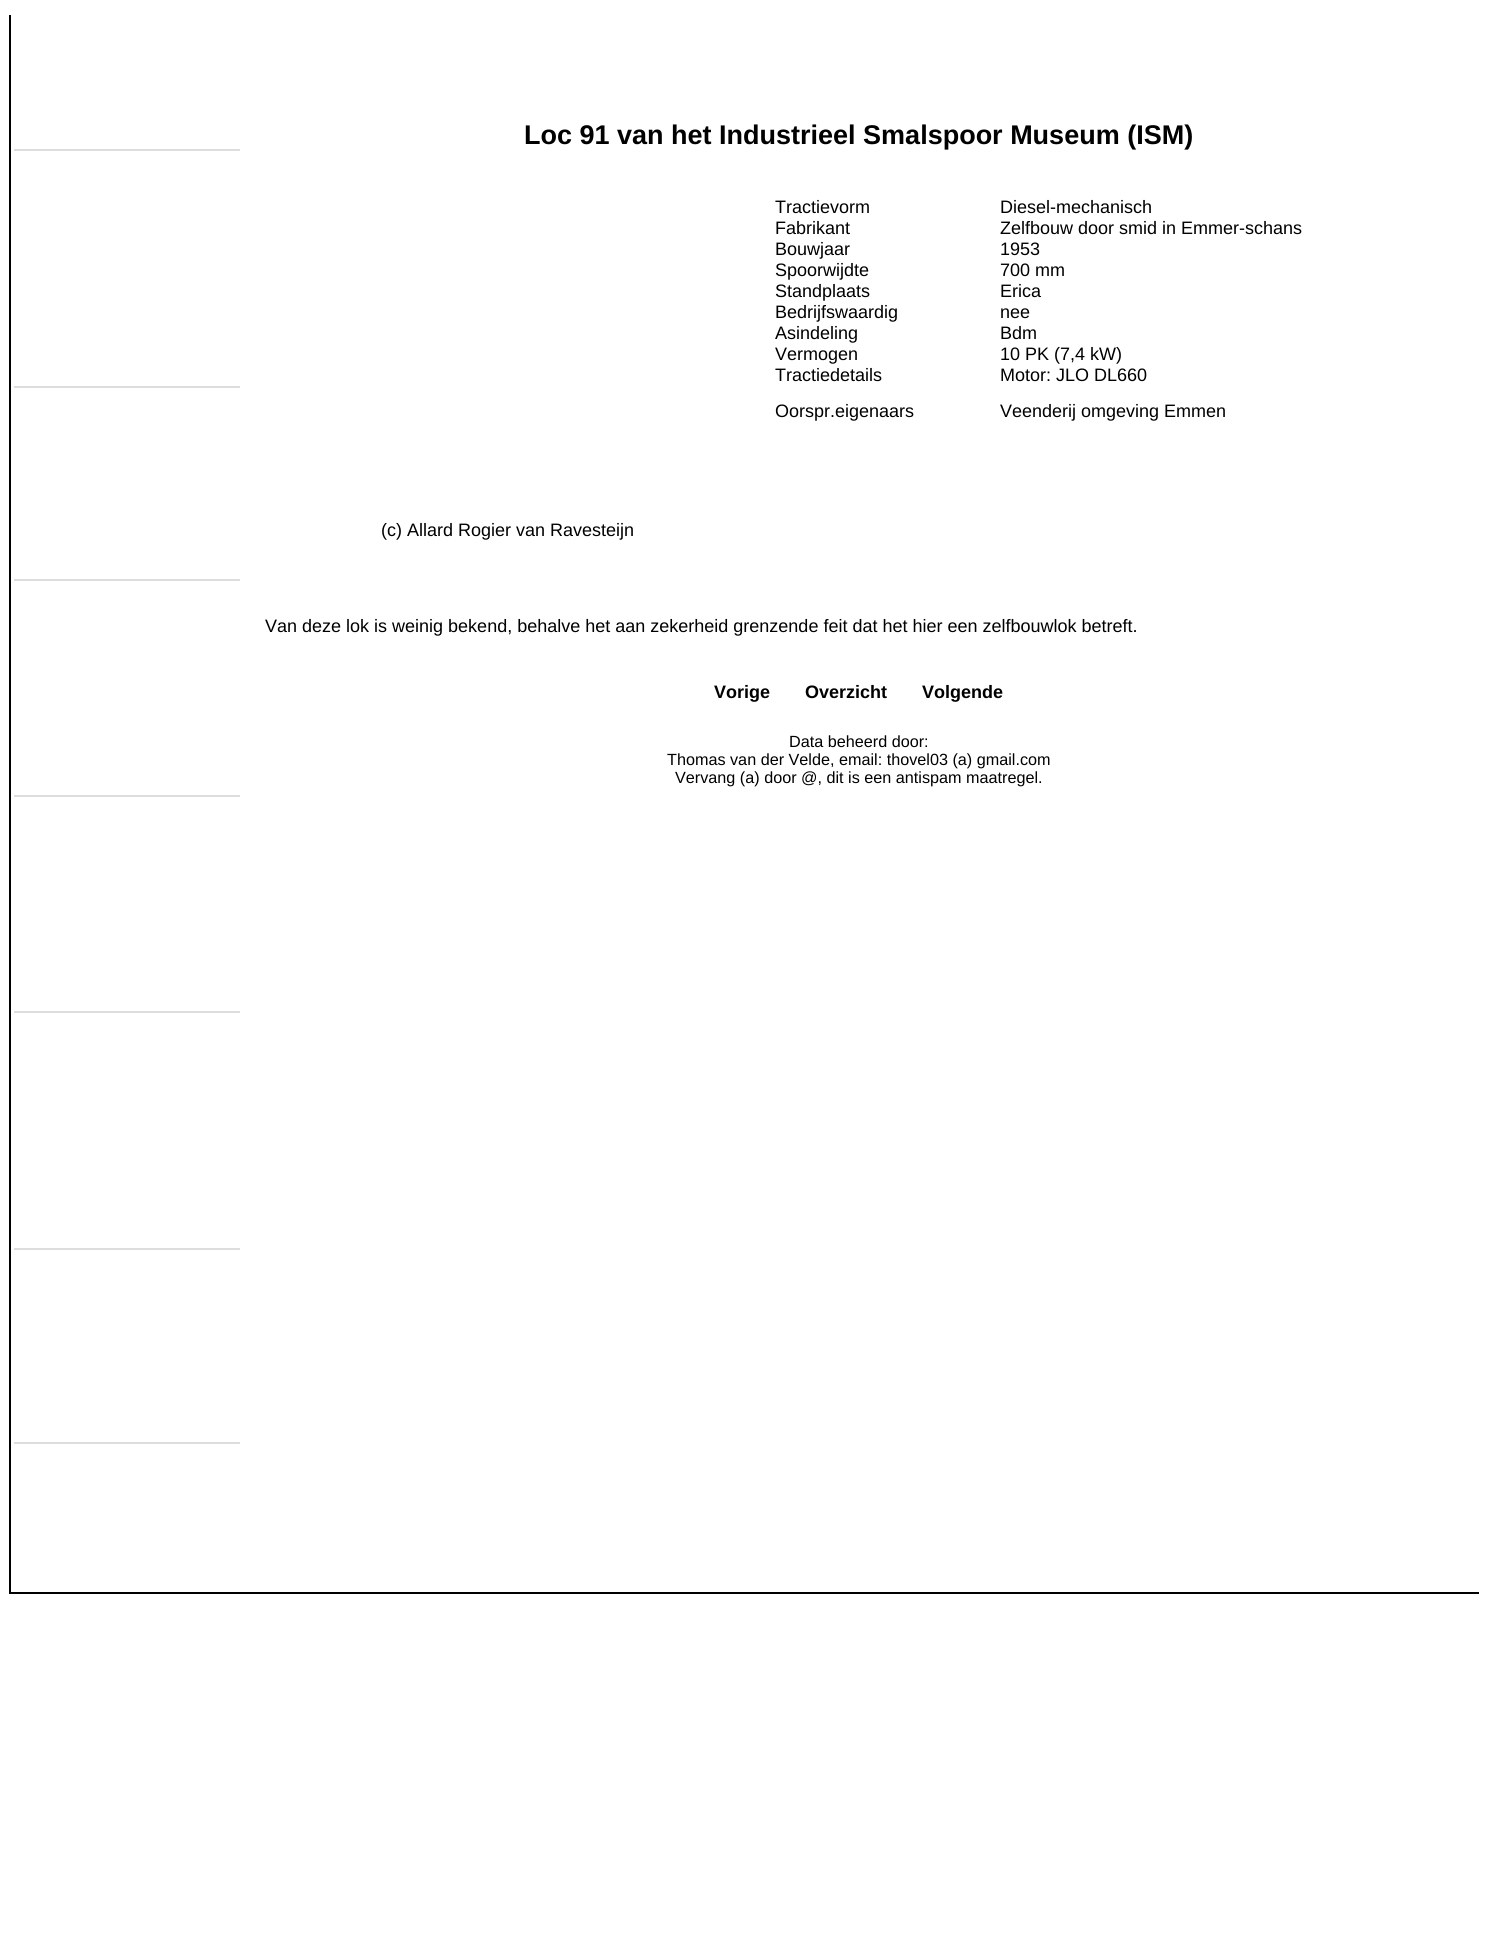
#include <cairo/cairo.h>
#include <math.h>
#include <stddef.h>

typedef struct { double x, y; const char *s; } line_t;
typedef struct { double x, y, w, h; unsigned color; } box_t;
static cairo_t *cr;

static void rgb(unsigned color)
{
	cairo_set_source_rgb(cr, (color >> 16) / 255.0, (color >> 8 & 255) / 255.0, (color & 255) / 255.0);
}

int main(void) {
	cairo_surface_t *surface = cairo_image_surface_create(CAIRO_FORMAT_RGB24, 1486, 1948);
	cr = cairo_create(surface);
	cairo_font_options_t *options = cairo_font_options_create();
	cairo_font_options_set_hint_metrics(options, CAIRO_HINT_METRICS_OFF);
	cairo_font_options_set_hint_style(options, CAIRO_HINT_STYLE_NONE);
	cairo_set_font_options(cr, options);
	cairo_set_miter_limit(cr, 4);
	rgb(0xffffff);
	cairo_paint(cr);
	{
		static const box_t items[] = {
			{9, 1592, 1470, 2, 0x000000},
			{9, 15, 2, 1578, 0x000000},
			{14, 149, 226, 2, 0xdddddd},
			{14, 386, 226, 2, 0xdddddd},
			{14, 579, 226, 2, 0xdddddd},
			{14, 795, 226, 2, 0xdddddd},
			{14, 1011, 226, 2, 0xdddddd},
			{14, 1248, 226, 2, 0xdddddd},
			{14, 1442, 226, 2, 0xdddddd},
		};
		for (size_t i = 0; i < sizeof items / sizeof *items; i++) {
			rgb(items[i].color);
			cairo_rectangle(cr, items[i].x, items[i].y, items[i].w, items[i].h);
			cairo_fill(cr);
		}
	}
	cairo_select_font_face(cr, "Liberation Sans", CAIRO_FONT_SLANT_NORMAL, CAIRO_FONT_WEIGHT_BOLD);
	cairo_set_font_size(cr, 27);
	rgb(0x000000);
	cairo_move_to(cr, 524, 144);
	cairo_show_text(cr, "Loc 91 van het Industrieel Smalspoor Museum (ISM)");
	cairo_select_font_face(cr, "Liberation Sans", CAIRO_FONT_SLANT_NORMAL, CAIRO_FONT_WEIGHT_NORMAL);
	cairo_set_font_size(cr, 18);
	{
		static const line_t items[] = {
			{775, 213, "Tractievorm"},
			{1000, 213, "Diesel-mechanisch"},
			{775, 234, "Fabrikant"},
			{1000, 234, "Zelfbouw door smid in Emmer-schans"},
			{775, 255, "Bouwjaar"},
			{1000, 255, "1953"},
			{775, 276, "Spoorwijdte"},
			{1000, 276, "700 mm"},
			{775, 297, "Standplaats"},
			{1000, 297, "Erica"},
			{775, 318, "Bedrijfswaardig"},
			{1000, 318, "nee"},
			{775, 339, "Asindeling"},
			{1000, 339, "Bdm"},
			{775, 360, "Vermogen"},
			{1000, 360, "10 PK (7,4 kW)"},
			{775, 381, "Tractiedetails"},
			{1000, 381, "Motor: JLO DL660"},
			{775, 417, "Oorspr.eigenaars"},
			{1000, 417, "Veenderij omgeving Emmen"},
			{381, 536, "(c) Allard Rogier van Ravesteijn"},
			{265, 632, "Van deze lok is weinig bekend, behalve het aan zekerheid grenzende feit dat het hier een zelfbouwlok betreft."},
		};
		for (size_t i = 0; i < sizeof items / sizeof *items; i++) {
			cairo_move_to(cr, items[i].x, items[i].y);
			cairo_show_text(cr, items[i].s);
		}
	}
	cairo_select_font_face(cr, "Liberation Sans", CAIRO_FONT_SLANT_NORMAL, CAIRO_FONT_WEIGHT_BOLD);
	{
		static const line_t items[] = {
			{714, 698, "Vorige"},
			{805, 698, "Overzicht"},
			{922, 698, "Volgende"},
		};
		for (size_t i = 0; i < sizeof items / sizeof *items; i++) {
			cairo_move_to(cr, items[i].x, items[i].y);
			cairo_show_text(cr, items[i].s);
		}
	}
	cairo_select_font_face(cr, "Liberation Sans", CAIRO_FONT_SLANT_NORMAL, CAIRO_FONT_WEIGHT_NORMAL);
	cairo_set_font_size(cr, 16.2);
	{
		static const line_t items[] = {
			{789, 747, "Data beheerd door:"},
			{667, 765, "Thomas van der Velde, email: thovel03 (a) gmail.com"},
			{675, 783, "Vervang (a) door @, dit is een antispam maatregel."},
		};
		for (size_t i = 0; i < sizeof items / sizeof *items; i++) {
			cairo_move_to(cr, items[i].x, items[i].y);
			cairo_show_text(cr, items[i].s);
		}
	}
	cairo_surface_write_to_png(surface, "page.png");
	cairo_font_options_destroy(options);
	cairo_destroy(cr);
	cairo_surface_destroy(surface);
	return 0;
}
